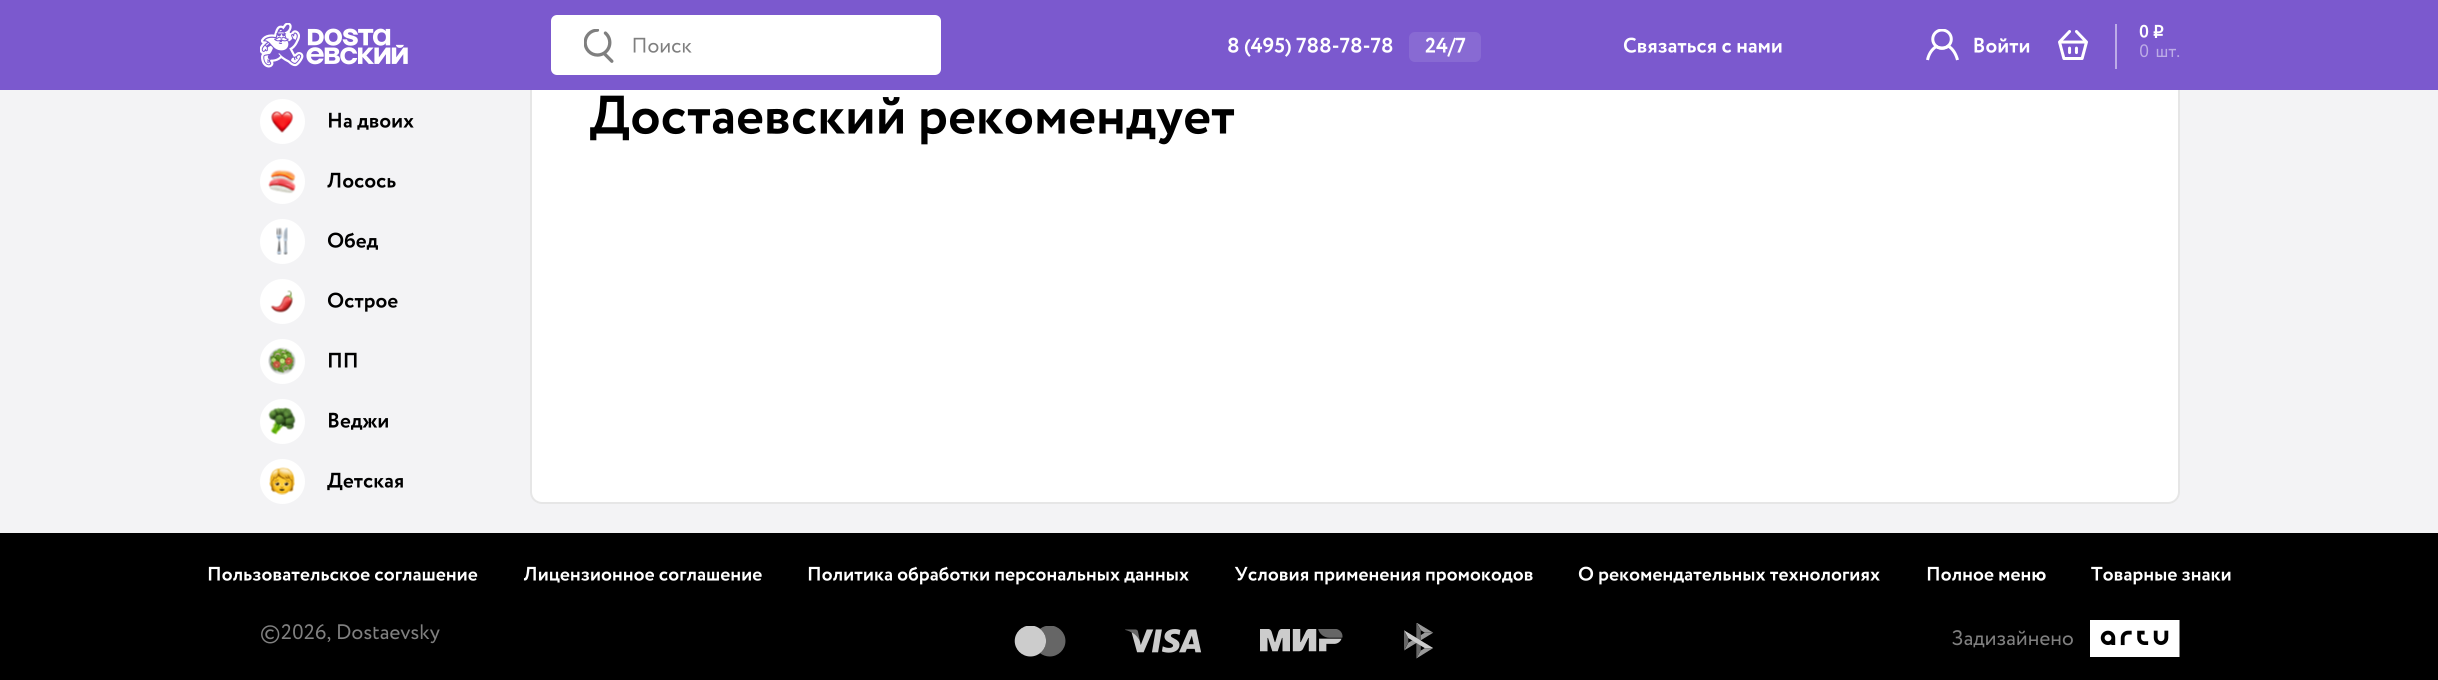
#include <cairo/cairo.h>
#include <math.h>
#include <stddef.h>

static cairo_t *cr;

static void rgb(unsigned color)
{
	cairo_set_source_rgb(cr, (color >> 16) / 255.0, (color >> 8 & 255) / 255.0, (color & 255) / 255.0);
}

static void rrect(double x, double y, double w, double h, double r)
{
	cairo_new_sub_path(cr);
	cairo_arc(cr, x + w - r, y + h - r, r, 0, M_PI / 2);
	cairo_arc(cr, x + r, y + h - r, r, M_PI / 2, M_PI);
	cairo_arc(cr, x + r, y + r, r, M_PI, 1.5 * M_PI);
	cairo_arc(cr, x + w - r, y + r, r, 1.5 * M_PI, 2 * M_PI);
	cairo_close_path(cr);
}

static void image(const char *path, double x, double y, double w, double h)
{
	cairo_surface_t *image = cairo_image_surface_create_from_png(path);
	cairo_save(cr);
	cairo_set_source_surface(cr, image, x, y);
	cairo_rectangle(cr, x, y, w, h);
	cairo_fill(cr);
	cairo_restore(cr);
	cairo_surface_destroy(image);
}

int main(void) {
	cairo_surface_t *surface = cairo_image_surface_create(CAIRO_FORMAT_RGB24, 2438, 680);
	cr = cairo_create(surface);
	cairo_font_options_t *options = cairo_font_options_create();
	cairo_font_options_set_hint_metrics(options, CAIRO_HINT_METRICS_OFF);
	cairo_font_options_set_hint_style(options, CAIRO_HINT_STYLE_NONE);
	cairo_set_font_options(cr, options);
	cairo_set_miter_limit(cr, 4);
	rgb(0xf3f3f5);
	cairo_paint(cr);
	rgb(0xffffff);
	cairo_arc(cr, 282.5, 121.5, 22.5, 0, 2 * M_PI);
	cairo_fill(cr);
	image("img/1.png", 270, 111, 24, 22);
	image("img/2.png", 329, 112, 85, 18);
	cairo_arc(cr, 282.5, 181.5, 22.5, 0, 2 * M_PI);
	cairo_fill(cr);
	image("img/3.png", 268, 169, 28, 25);
	image("img/4.png", 327, 172, 69, 16);
	cairo_arc(cr, 282.5, 241.5, 22.5, 0, 2 * M_PI);
	cairo_fill(cr);
	image("img/5.png", 276, 227, 12, 28);
	image("img/6.png", 327, 232, 51, 18);
	cairo_arc(cr, 282.5, 301.5, 22.5, 0, 2 * M_PI);
	cairo_fill(cr);
	image("img/7.png", 270, 290, 24, 23);
	image("img/8.png", 327, 292, 71, 20);
	cairo_arc(cr, 282.5, 361.5, 22.5, 0, 2 * M_PI);
	cairo_fill(cr);
	image("img/9.png", 268, 347, 28, 28);
	image("img/10.png", 329, 352, 28, 16);
	cairo_arc(cr, 282.5, 421.5, 22.5, 0, 2 * M_PI);
	cairo_fill(cr);
	image("img/11.png", 268, 407, 28, 28);
	image("img/12.png", 329, 412, 59, 18);
	cairo_arc(cr, 282.5, 481.5, 22.5, 0, 2 * M_PI);
	cairo_fill(cr);
	image("img/13.png", 269, 467, 26, 28);
	image("img/14.png", 327, 472, 76, 19);
	rrect(530, -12, 1650, 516, 12);
	cairo_fill(cr);
	rrect(531, -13, 1648, 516, 11);
	cairo_set_source_rgba(cr, 0, 0, 0, 0.1);
	cairo_stroke(cr);
	image("img/15.png", 590, 95, 645, 50);
	rgb(0x7b59ce);
	cairo_rectangle(cr, 0, 0, 2438, 90);
	cairo_fill(cr);
	image("img/16.png", 260, 23, 148, 45);
	rgb(0xffffff);
	rrect(551, 15, 390, 60, 6);
	cairo_fill(cr);
	image("img/17.png", 584, 29, 30, 34);
	image("img/18.png", 633, 37, 59, 16);
	image("img/19.png", 1228, 37, 165, 20);
	rgb(0x886ad3);
	rrect(1409, 32, 72, 30, 6);
	cairo_fill(cr);
	image("img/20.png", 1425, 37, 41, 20);
	image("img/21.png", 1623, 37, 159, 16);
	image("img/22.png", 1926, 29, 33, 32);
	image("img/23.png", 1974, 37, 56, 16);
	image("img/24.png", 2058, 30, 30, 30);
	rgb(0xbdace7);
	cairo_rectangle(cr, 2115, 24, 2, 45);
	cairo_fill(cr);
	image("img/25.png", 2139, 24, 10, 14);
	image("img/26.png", 2140, 44, 9, 14);
	image("img/27.png", 2156, 48, 24, 9);
	rgb(0x000000);
	cairo_rectangle(cr, 0, 533, 2438, 147);
	cairo_fill(cr);
	image("img/28.png", 208, 566, 270, 15);
	image("img/29.png", 523, 566, 239, 17);
	image("img/30.png", 808, 566, 381, 19);
	image("img/31.png", 1234, 566, 299, 19);
	image("img/32.png", 1578, 566, 302, 19);
	image("img/33.png", 1927, 566, 119, 15);
	image("img/34.png", 2091, 566, 140, 19);
	image("img/35.png", 261, 624, 179, 20);
	image("img/36.png", 1014, 626, 52, 31);
	image("img/37.png", 1125, 629, 77, 24);
	image("img/38.png", 1260, 629, 83, 23);
	image("img/39.png", 1404, 623, 30, 36);
	image("img/40.png", 1952, 630, 121, 18);
	image("img/41.png", 2090, 620, 90, 37);
	cairo_select_font_face(cr, "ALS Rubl", CAIRO_FONT_SLANT_NORMAL, CAIRO_FONT_WEIGHT_BOLD);
	cairo_set_font_size(cr, 18);
	rgb(0xffffff);
	cairo_move_to(cr, 2152, 38);
	cairo_show_text(cr, "i");
	cairo_surface_write_to_png(surface, "page.png");
	cairo_font_options_destroy(options);
	cairo_destroy(cr);
	cairo_surface_destroy(surface);
	return 0;
}
